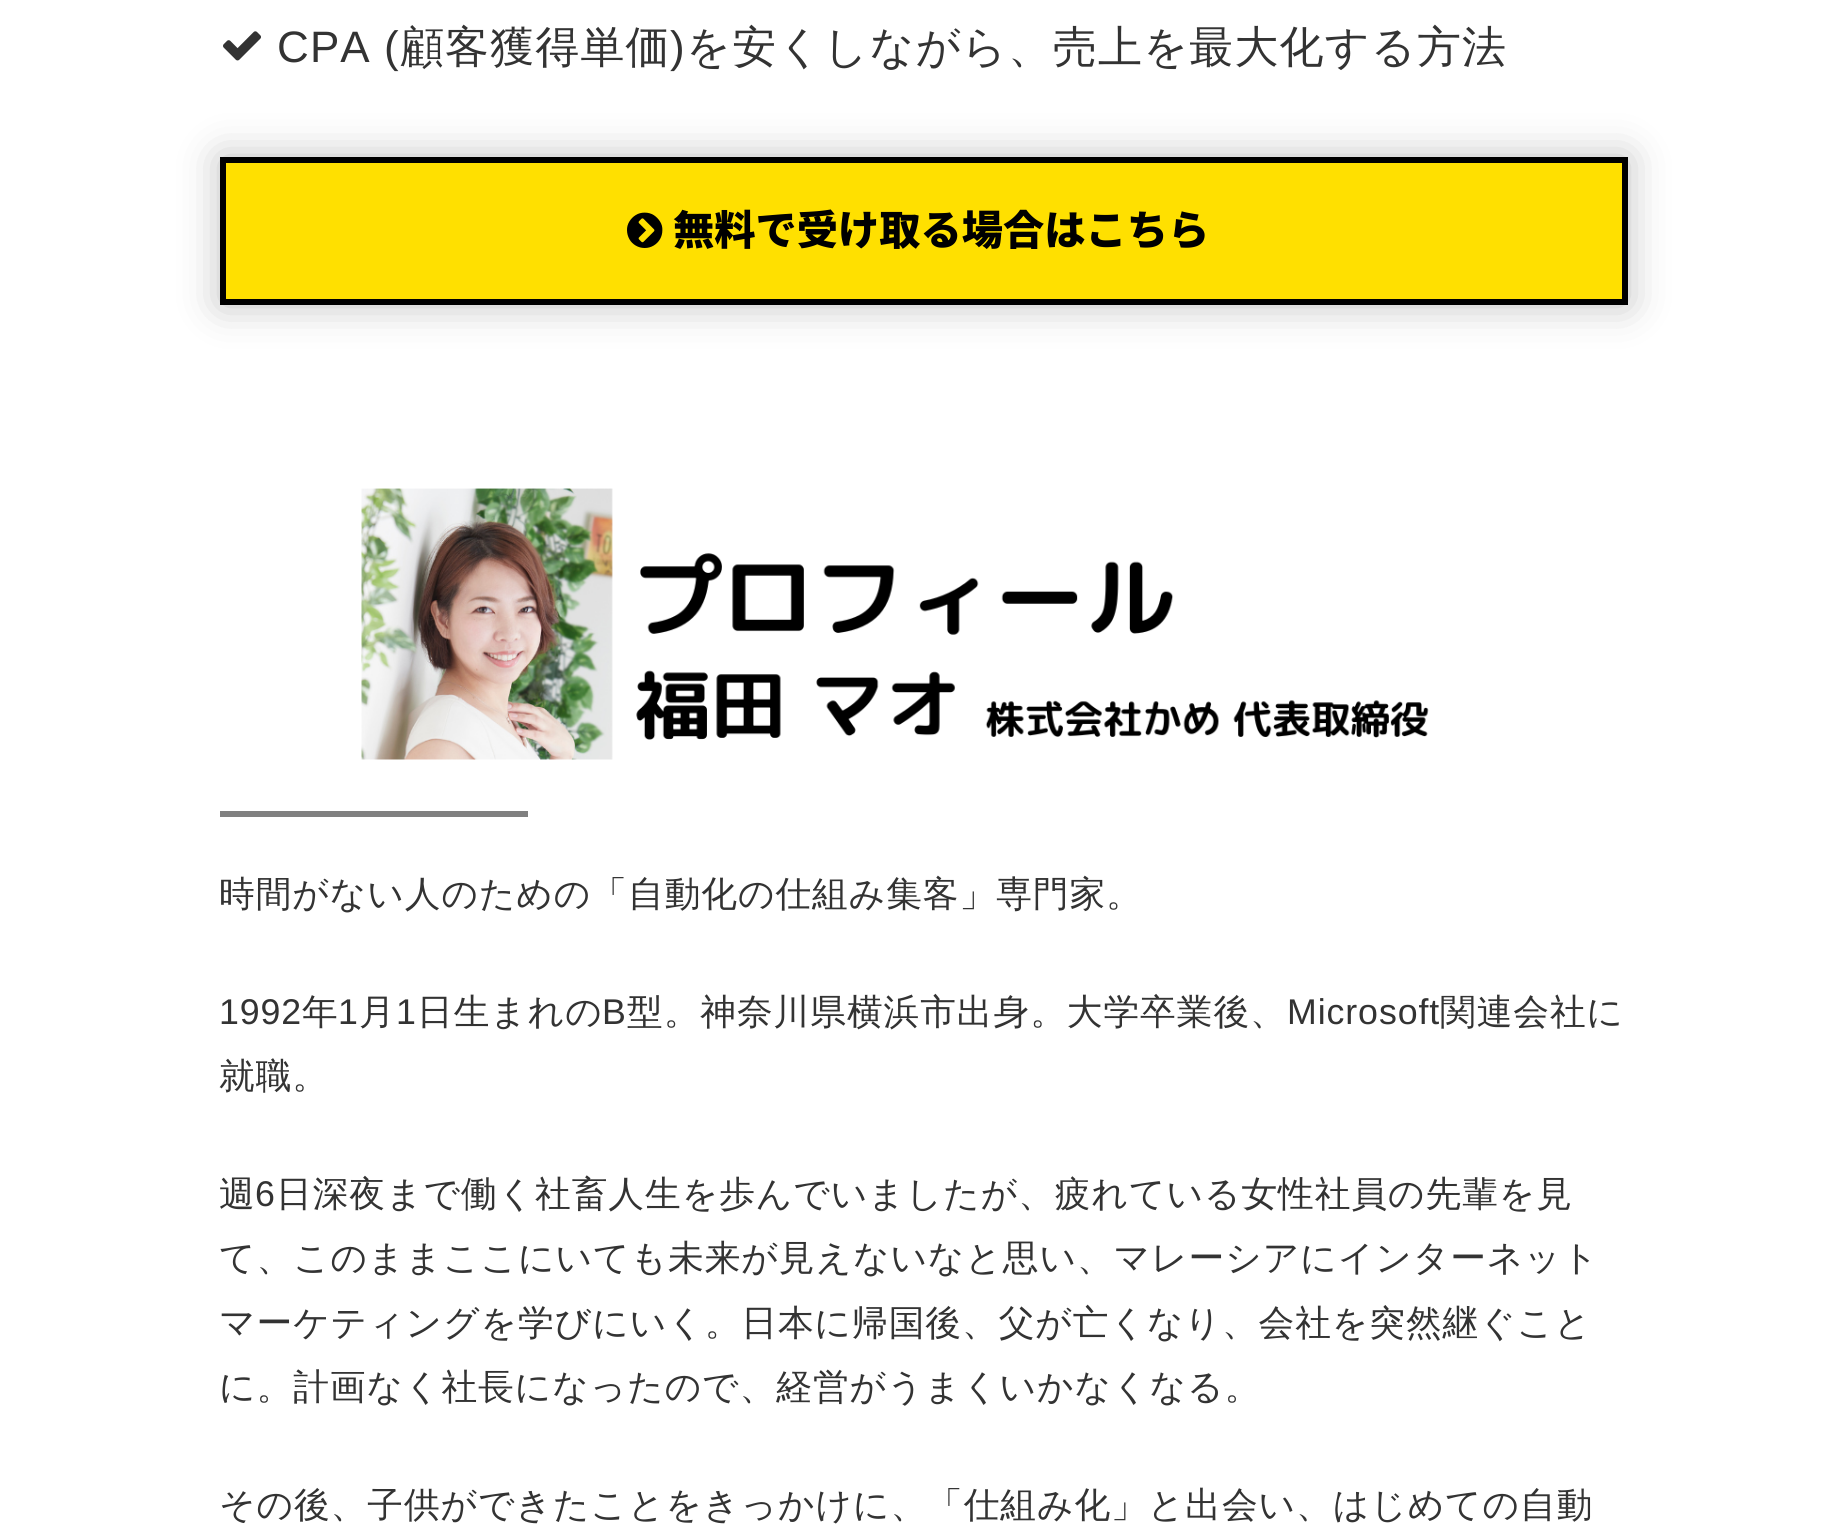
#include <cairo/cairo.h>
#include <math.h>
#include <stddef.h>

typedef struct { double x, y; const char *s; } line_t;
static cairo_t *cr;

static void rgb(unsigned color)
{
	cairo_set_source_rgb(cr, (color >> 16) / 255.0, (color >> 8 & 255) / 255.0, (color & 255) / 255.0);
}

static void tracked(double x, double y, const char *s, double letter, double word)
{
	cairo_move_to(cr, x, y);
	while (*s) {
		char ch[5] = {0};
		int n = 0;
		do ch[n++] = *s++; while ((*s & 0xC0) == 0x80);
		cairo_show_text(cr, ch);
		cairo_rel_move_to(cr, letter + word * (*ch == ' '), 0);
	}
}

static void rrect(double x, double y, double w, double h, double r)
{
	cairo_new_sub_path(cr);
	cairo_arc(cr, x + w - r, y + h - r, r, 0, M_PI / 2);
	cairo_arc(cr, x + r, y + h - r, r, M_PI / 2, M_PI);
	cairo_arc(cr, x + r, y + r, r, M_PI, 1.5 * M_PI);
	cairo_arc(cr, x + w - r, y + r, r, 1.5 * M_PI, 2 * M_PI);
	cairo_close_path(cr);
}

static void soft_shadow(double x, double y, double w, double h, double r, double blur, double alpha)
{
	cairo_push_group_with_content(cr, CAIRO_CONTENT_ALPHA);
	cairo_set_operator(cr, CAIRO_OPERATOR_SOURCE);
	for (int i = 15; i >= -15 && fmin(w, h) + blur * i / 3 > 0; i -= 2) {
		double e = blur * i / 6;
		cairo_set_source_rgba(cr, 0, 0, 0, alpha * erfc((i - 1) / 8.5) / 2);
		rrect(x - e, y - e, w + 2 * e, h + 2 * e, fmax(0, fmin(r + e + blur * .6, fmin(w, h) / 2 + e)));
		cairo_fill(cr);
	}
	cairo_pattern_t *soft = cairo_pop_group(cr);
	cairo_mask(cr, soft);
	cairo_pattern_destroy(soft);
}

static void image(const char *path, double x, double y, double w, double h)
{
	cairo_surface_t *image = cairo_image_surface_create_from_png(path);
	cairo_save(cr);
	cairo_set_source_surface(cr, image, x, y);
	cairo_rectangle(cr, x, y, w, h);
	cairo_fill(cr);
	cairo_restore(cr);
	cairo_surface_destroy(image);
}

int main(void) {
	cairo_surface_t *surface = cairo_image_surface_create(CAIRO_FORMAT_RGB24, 1843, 1529);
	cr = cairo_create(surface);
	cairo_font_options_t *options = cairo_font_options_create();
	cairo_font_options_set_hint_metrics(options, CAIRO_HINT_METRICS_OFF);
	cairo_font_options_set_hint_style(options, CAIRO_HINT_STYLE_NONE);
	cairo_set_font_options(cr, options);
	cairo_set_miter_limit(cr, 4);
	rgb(0xffffff);
	cairo_paint(cr);
	image("img/1.png", 223, 31, 38, 30);
	rgb(0x000000);
	soft_shadow(220, 157, 1408, 148, 0, 20.5, 0.25);
	rgb(0xffe000);
	cairo_rectangle(cr, 223, 160, 1402, 142);
	cairo_fill_preserve(cr);
	rgb(0x000000);
	cairo_set_line_width(cr, 6);
	cairo_stroke(cr);
	image("img/2.png", 627, 212, 36, 36);
	image("img/3.png", 361, 488, 1068, 272);
	rgb(0x808080);
	cairo_rectangle(cr, 220, 811, 308, 6);
	cairo_fill(cr);
	cairo_select_font_face(cr, "Liberation Sans", CAIRO_FONT_SLANT_NORMAL, CAIRO_FONT_WEIGHT_NORMAL);
	cairo_set_font_size(cr, 44);
	rgb(0x333333);
	tracked(277, 62, "CPA (", 1.1, 0);
	cairo_select_font_face(cr, "WenQuanYi Zen Hei Medium", CAIRO_FONT_SLANT_NORMAL, CAIRO_FONT_WEIGHT_NORMAL);
	tracked(400, 62, "顧客獲得単価", 1.1, 0);
	cairo_select_font_face(cr, "Liberation Sans", CAIRO_FONT_SLANT_NORMAL, CAIRO_FONT_WEIGHT_NORMAL);
	tracked(670, 62, ")", 1.1, 0);
	cairo_select_font_face(cr, "WenQuanYi Zen Hei Medium", CAIRO_FONT_SLANT_NORMAL, CAIRO_FONT_WEIGHT_NORMAL);
	tracked(686, 62, "を安くしながら、売上を最大化する方法", 1.1, 0);
	cairo_select_font_face(cr, "Noto Sans JP Thin", CAIRO_FONT_SLANT_NORMAL, CAIRO_FONT_WEIGHT_NORMAL);
	cairo_set_font_size(cr, 41.25);
	rgb(0x000000);
	cairo_move_to(cr, 673, 245);
	cairo_show_text(cr, "無料で受け取る場合はこちら");
	cairo_select_font_face(cr, "WenQuanYi Zen Hei Medium", CAIRO_FONT_SLANT_NORMAL, CAIRO_FONT_WEIGHT_NORMAL);
	cairo_set_font_size(cr, 35.75);
	rgb(0x333333);
	tracked(219, 906, "時間がない人のための「自動化の仕組み集客」専門家。", 0.9, 0);
	cairo_select_font_face(cr, "Liberation Sans", CAIRO_FONT_SLANT_NORMAL, CAIRO_FONT_WEIGHT_NORMAL);
	tracked(219, 1024, "1992", 0.9, 0);
	cairo_select_font_face(cr, "WenQuanYi Zen Hei Medium", CAIRO_FONT_SLANT_NORMAL, CAIRO_FONT_WEIGHT_NORMAL);
	tracked(302, 1024, "年", 0.9, 0);
	cairo_select_font_face(cr, "Liberation Sans", CAIRO_FONT_SLANT_NORMAL, CAIRO_FONT_WEIGHT_NORMAL);
	tracked(338, 1024, "1", 0.9, 0);
	cairo_select_font_face(cr, "WenQuanYi Zen Hei Medium", CAIRO_FONT_SLANT_NORMAL, CAIRO_FONT_WEIGHT_NORMAL);
	tracked(359, 1024, "月", 0.9, 0);
	cairo_select_font_face(cr, "Liberation Sans", CAIRO_FONT_SLANT_NORMAL, CAIRO_FONT_WEIGHT_NORMAL);
	tracked(396, 1024, "1", 0.9, 0);
	cairo_select_font_face(cr, "WenQuanYi Zen Hei Medium", CAIRO_FONT_SLANT_NORMAL, CAIRO_FONT_WEIGHT_NORMAL);
	tracked(417, 1024, "日生まれの", 0.9, 0);
	cairo_select_font_face(cr, "Liberation Sans", CAIRO_FONT_SLANT_NORMAL, CAIRO_FONT_WEIGHT_NORMAL);
	tracked(602, 1024, "B", 0.9, 0);
	cairo_select_font_face(cr, "WenQuanYi Zen Hei Medium", CAIRO_FONT_SLANT_NORMAL, CAIRO_FONT_WEIGHT_NORMAL);
	tracked(627, 1024, "型。神奈川県横浜市出身。大学卒業後、", 0.9, 0);
	cairo_select_font_face(cr, "Liberation Sans", CAIRO_FONT_SLANT_NORMAL, CAIRO_FONT_WEIGHT_NORMAL);
	tracked(1287, 1024, "Microsoft", 0.9, 0);
	cairo_select_font_face(cr, "WenQuanYi Zen Hei Medium", CAIRO_FONT_SLANT_NORMAL, CAIRO_FONT_WEIGHT_NORMAL);
	{
		static const line_t items[] = {
			{1440, 1024, "関連会社に"},
			{219, 1088, "就職。"},
			{219, 1206, "週"},
		};
		for (size_t i = 0; i < sizeof items / sizeof *items; i++) {
			tracked(items[i].x, items[i].y, items[i].s, 0.9, 0);
		}
	}
	cairo_select_font_face(cr, "Liberation Sans", CAIRO_FONT_SLANT_NORMAL, CAIRO_FONT_WEIGHT_NORMAL);
	tracked(255, 1206, "6", 0.9, 0);
	cairo_select_font_face(cr, "WenQuanYi Zen Hei Medium", CAIRO_FONT_SLANT_NORMAL, CAIRO_FONT_WEIGHT_NORMAL);
	{
		static const line_t items[] = {
			{276, 1206, "日深夜まで働く社畜人生を歩んでいましたが、疲れている女性社員の先輩を見"},
			{219, 1270, "て、このままここにいても未来が見えないなと思い、マレーシアにインターネット"},
			{219, 1335, "マーケティングを学びにいく。日本に帰国後、父が亡くなり、会社を突然継ぐこと"},
			{219, 1399, "に。計画なく社長になったので、経営がうまくいかなくなる。"},
			{219, 1517, "その後、子供ができたことをきっかけに、「仕組み化」と出会い、はじめての自動"},
		};
		for (size_t i = 0; i < sizeof items / sizeof *items; i++) {
			tracked(items[i].x, items[i].y, items[i].s, 0.9, 0);
		}
	}
	cairo_surface_write_to_png(surface, "page.png");
	cairo_font_options_destroy(options);
	cairo_destroy(cr);
	cairo_surface_destroy(surface);
	return 0;
}
